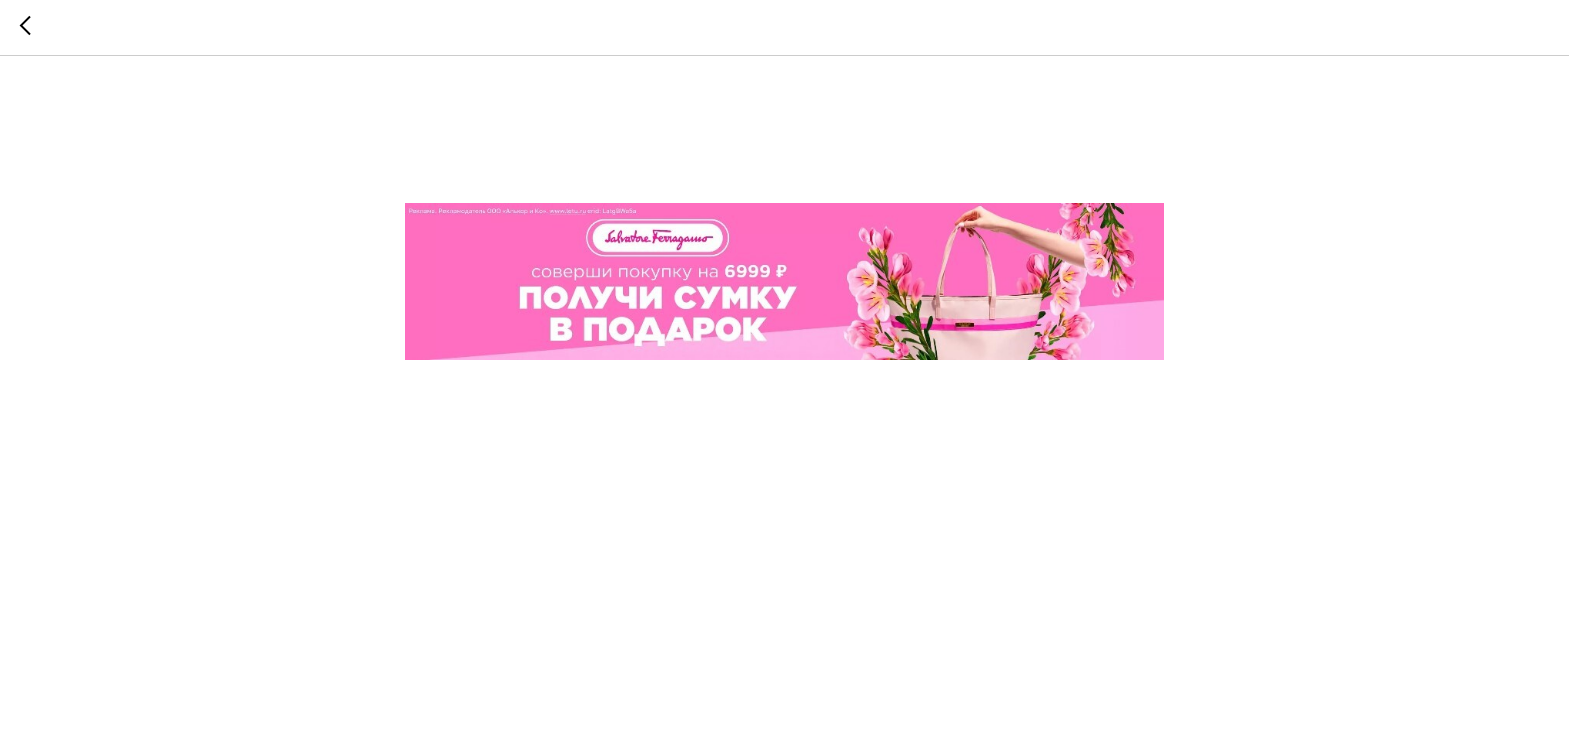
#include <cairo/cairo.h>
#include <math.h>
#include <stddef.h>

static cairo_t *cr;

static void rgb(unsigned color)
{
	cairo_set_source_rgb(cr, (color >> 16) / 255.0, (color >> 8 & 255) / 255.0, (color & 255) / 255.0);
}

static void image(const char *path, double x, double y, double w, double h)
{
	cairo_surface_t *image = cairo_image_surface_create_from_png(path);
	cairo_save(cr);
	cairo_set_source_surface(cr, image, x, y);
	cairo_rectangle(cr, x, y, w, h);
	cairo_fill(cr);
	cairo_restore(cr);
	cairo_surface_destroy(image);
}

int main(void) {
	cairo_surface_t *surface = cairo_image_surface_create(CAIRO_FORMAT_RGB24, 1569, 740);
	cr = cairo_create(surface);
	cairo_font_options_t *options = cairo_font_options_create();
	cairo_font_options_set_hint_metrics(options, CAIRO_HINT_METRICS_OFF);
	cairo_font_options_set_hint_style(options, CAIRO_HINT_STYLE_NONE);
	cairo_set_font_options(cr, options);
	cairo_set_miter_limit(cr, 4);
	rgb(0xffffff);
	cairo_paint(cr);
	rgb(0xcccccc);
	cairo_rectangle(cr, 0, 55, 1569, 1);
	cairo_fill(cr);
	cairo_new_path(cr);
	cairo_move_to(cr, 30, 34.5);
	cairo_line_to(cr, 21, 25.5);
	cairo_line_to(cr, 30, 16.5);
	rgb(0x000000);
	cairo_stroke(cr);
	image("img/1.png", 405, 203, 759, 157);
	cairo_surface_write_to_png(surface, "page.png");
	cairo_font_options_destroy(options);
	cairo_destroy(cr);
	cairo_surface_destroy(surface);
	return 0;
}
